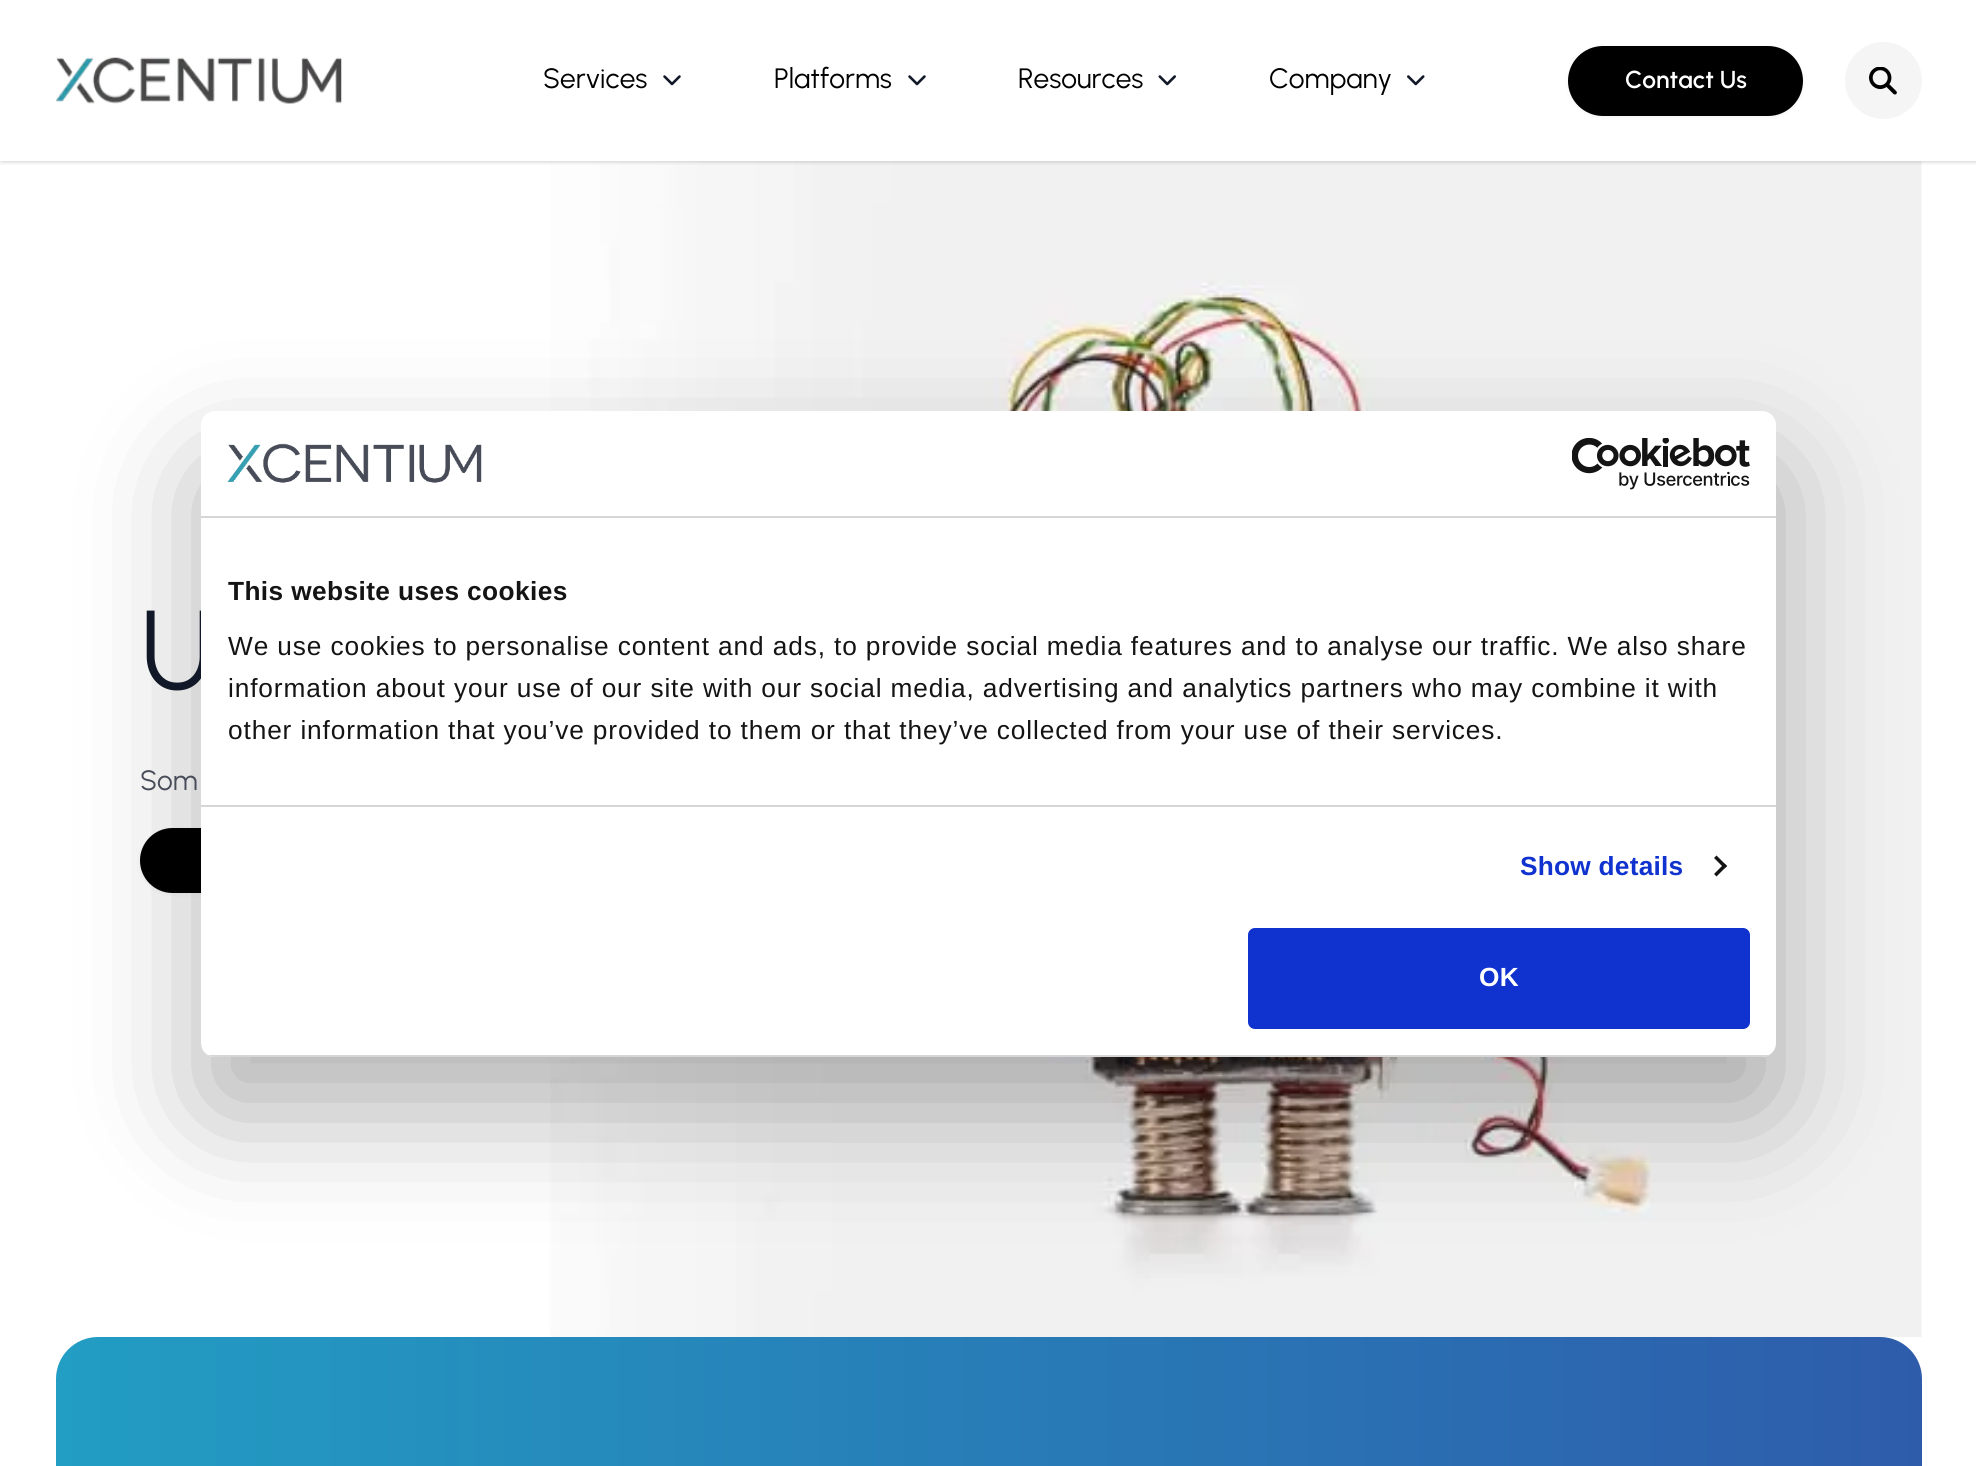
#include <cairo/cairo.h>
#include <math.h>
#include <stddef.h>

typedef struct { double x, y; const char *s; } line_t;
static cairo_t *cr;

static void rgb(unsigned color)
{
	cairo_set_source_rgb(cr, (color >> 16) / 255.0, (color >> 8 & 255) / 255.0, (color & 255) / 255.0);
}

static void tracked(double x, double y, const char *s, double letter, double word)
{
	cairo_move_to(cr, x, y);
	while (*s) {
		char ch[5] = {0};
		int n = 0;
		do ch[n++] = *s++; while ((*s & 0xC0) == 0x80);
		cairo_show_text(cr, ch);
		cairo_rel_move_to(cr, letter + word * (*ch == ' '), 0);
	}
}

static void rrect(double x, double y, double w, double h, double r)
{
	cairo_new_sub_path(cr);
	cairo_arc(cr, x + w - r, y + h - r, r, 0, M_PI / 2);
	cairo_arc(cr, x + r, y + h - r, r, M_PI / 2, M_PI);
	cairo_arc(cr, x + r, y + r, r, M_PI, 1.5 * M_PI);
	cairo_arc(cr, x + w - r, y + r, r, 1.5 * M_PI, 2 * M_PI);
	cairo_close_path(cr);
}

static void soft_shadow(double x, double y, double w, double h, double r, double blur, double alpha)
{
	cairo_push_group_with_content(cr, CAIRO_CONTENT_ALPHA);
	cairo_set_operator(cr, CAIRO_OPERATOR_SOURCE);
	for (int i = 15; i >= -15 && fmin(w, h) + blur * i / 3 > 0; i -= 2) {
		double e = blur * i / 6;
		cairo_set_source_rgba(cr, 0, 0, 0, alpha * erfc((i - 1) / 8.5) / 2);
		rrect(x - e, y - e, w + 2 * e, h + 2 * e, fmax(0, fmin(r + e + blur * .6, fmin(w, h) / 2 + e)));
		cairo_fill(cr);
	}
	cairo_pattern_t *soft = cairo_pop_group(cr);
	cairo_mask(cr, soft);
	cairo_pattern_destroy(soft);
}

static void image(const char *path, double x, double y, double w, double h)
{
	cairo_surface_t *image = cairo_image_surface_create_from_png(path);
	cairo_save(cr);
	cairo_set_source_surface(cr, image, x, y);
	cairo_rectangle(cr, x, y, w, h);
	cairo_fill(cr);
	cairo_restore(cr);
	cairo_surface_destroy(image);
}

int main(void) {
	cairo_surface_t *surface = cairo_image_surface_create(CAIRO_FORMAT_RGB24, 1976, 1466);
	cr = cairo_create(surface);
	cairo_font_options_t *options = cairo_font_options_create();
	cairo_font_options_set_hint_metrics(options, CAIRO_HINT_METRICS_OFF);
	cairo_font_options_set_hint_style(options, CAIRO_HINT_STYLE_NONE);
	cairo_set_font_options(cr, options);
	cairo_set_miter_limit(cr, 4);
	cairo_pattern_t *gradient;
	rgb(0xffffff);
	cairo_paint(cr);
	image("img/6.png", 550, 161, 1372, 1176);
	cairo_save(cr);
	cairo_rectangle(cr, 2, 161, 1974, 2);
	cairo_clip(cr);
	rgb(0x000000);
	soft_shadow(2, 4, 1974, 157, 0, 2, 0.1);
	cairo_restore(cr);
	cairo_save(cr);
	cairo_rectangle(cr, 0, 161, 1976, 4);
	cairo_clip(cr);
	rgb(0x000000);
	soft_shadow(0, 2, 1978, 161, 0, 2.5, 0.1);
	cairo_restore(cr);
	image("img/1.png", 56, 57, 286, 47);
	image("img/2.png", 663, 75, 18, 11);
	image("img/2.png", 908, 75, 18, 11);
	image("img/3.png", 1158, 75, 18, 11);
	image("img/4.png", 1407, 75, 18, 11);
	rgb(0x000000);
	soft_shadow(1568, 47, 235, 70, 35, 2, 0.05);
	rgb(0x000000);
	rrect(1568, 46, 235, 70, 35);
	cairo_fill(cr);
	rgb(0xf5f5f5);
	cairo_arc(cr, 1883.5, 80.5, 38.5, 0, 2 * M_PI);
	cairo_fill(cr);
	image("img/5.png", 1869, 67, 28, 28);
	rgb(0x000000);
	soft_shadow(140, 830, 284, 64, 32, 2, 0.05);
	rgb(0x000000);
	rrect(140, 828, 284, 65, 32.5);
	cairo_fill(cr);
	gradient = cairo_pattern_create_linear(56, 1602, 1922, 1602);
	cairo_pattern_add_color_stop_rgba(gradient, 0, 0.133, 0.616, 0.765, 1);
	cairo_pattern_add_color_stop_rgba(gradient, 1, 0.18, 0.361, 0.671, 1);
	cairo_set_source(cr, gradient);
	cairo_pattern_destroy(gradient);
	rrect(56, 1337, 1866, 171, 42);
	cairo_fill(cr);
	rgb(0x000000);
	soft_shadow(201, 467, 1575, 646, 14, 59.5, 0.3);
	cairo_select_font_face(cr, "Urbanist", CAIRO_FONT_SLANT_NORMAL, CAIRO_FONT_WEIGHT_NORMAL);
	cairo_set_font_size(cr, 28);
	rgb(0x000000);
	{
		static const line_t items[] = {
			{543, 88, "Services"},
			{774, 88, "Platforms"},
			{1018, 88, "Resources"},
			{1269, 88, "Company"},
		};
		for (size_t i = 0; i < sizeof items / sizeof *items; i++) {
			cairo_move_to(cr, items[i].x, items[i].y);
			cairo_show_text(cr, items[i].s);
		}
	}
	cairo_select_font_face(cr, "Urbanist SemiBold", CAIRO_FONT_SLANT_NORMAL, CAIRO_FONT_WEIGHT_NORMAL);
	cairo_set_font_size(cr, 24.5);
	rgb(0xffffff);
	cairo_move_to(cr, 1625, 88);
	cairo_show_text(cr, "Contact Us");
	cairo_select_font_face(cr, "Urbanist", CAIRO_FONT_SLANT_NORMAL, CAIRO_FONT_WEIGHT_NORMAL);
	cairo_set_font_size(cr, 112);
	rgb(0x111827);
	cairo_move_to(cr, 140, 689);
	cairo_show_text(cr, "U");
	cairo_set_font_size(cr, 28);
	rgb(0x474c58);
	cairo_move_to(cr, 140, 790);
	cairo_show_text(cr, "Som");
	rgb(0xffffff);
	rrect(201, 411, 1575, 646, 14);
	cairo_fill(cr);
	rgb(0xd6d6d6);
	cairo_rectangle(cr, 201, 516, 1575, 2);
	cairo_fill(cr);
	image("img/7.png", 227, 443, 255, 40);
	image("img/8.png", 1572, 438, 178, 52);
	cairo_rectangle(cr, 201, 805, 1575, 2);
	cairo_fill(cr);
	cairo_select_font_face(cr, "Liberation Sans", CAIRO_FONT_SLANT_NORMAL, CAIRO_FONT_WEIGHT_BOLD);
	cairo_set_font_size(cr, 26.25);
	rgb(0x141414);
	tracked(228, 600, "This website uses cookies", 0.4, 0);
	cairo_select_font_face(cr, "Liberation Sans", CAIRO_FONT_SLANT_NORMAL, CAIRO_FONT_WEIGHT_NORMAL);
	{
		static const line_t items[] = {
			{228, 655, "We use cookies to personalise content and ads, to provide social media features and to analyse our traffic. We also share"},
			{228, 697, "information about your use of our site with our social media, advertising and analytics partners who may combine it with"},
			{228, 739, "other information that you’ve provided to them or that they’ve collected from your use of their services."},
		};
		for (size_t i = 0; i < sizeof items / sizeof *items; i++) {
			tracked(items[i].x, items[i].y, items[i].s, 0.88, 0);
		}
	}
	cairo_select_font_face(cr, "Liberation Sans", CAIRO_FONT_SLANT_NORMAL, CAIRO_FONT_WEIGHT_BOLD);
	rgb(0x1032cf);
	tracked(1520, 875, "Show details", 0.25, 0);
	rgb(0x141414);
	cairo_new_path(cr);
	cairo_move_to(cr, 1716.5, 855.5);
	cairo_line_to(cr, 1727, 866);
	cairo_line_to(cr, 1724.5, 868.5);
	cairo_line_to(cr, 1714, 858);
	cairo_close_path(cr);
	cairo_fill(cr);
	cairo_new_path(cr);
	cairo_move_to(cr, 1724.5, 863.5);
	cairo_line_to(cr, 1727, 866);
	cairo_line_to(cr, 1716.5, 876.5);
	cairo_line_to(cr, 1714, 874);
	cairo_close_path(cr);
	cairo_fill(cr);
	cairo_save(cr);
	rrect(201, 411, 1575, 646, 14);
	cairo_clip(cr);
	rgb(0xd6d6d6);
	cairo_rectangle(cr, 201, 1055, 1575, 2);
	cairo_fill(cr);
	cairo_restore(cr);
	rgb(0x1032cf);
	rrect(1250, 930, 498, 97, 5);
	cairo_fill_preserve(cr);
	cairo_set_line_width(cr, 4);
	cairo_stroke(cr);
	rgb(0xffffff);
	tracked(1479, 986, "OK", 0.25, 0);
	cairo_surface_write_to_png(surface, "page.png");
	cairo_font_options_destroy(options);
	cairo_destroy(cr);
	cairo_surface_destroy(surface);
	return 0;
}
